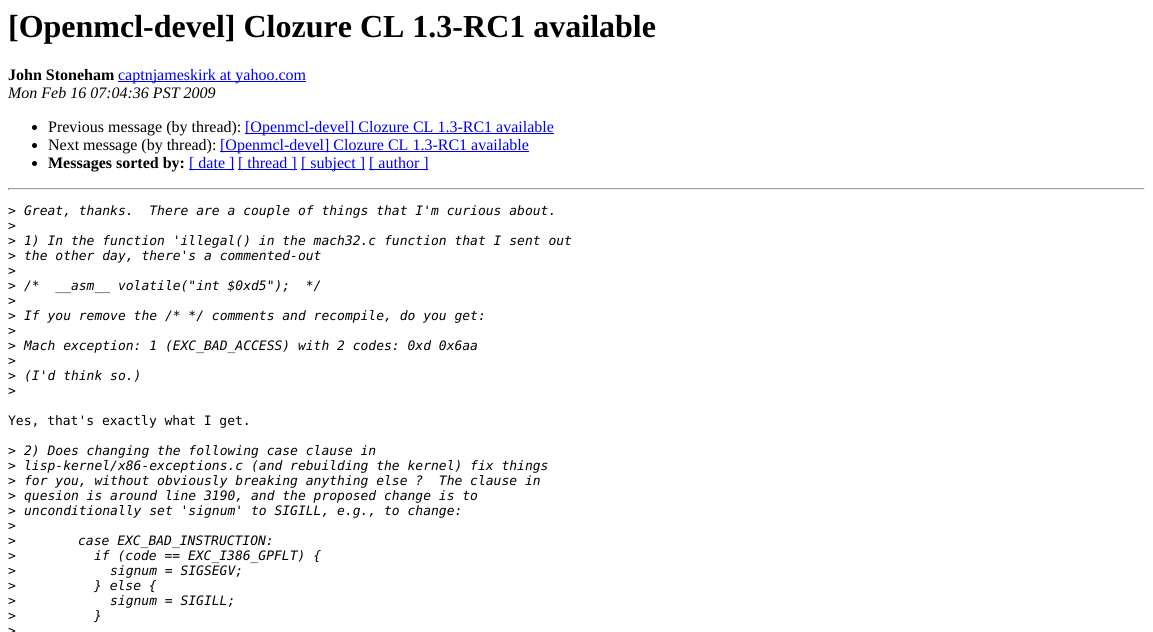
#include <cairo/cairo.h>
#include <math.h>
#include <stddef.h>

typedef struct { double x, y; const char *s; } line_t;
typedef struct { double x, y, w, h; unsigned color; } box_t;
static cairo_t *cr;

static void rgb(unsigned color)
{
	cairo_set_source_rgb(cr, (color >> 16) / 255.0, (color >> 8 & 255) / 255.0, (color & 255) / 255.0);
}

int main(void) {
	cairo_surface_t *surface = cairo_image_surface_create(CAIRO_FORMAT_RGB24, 1153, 632);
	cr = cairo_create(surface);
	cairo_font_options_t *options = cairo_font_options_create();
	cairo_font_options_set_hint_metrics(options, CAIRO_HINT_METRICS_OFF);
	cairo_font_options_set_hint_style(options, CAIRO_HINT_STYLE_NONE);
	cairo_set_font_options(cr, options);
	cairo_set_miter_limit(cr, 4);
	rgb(0xffffff);
	cairo_paint(cr);
	rgb(0x0000ee);
	cairo_rectangle(cr, 118, 81, 188, 1);
	cairo_fill(cr);
	rgb(0x000000);
	cairo_arc(cr, 34.5, 127.5, 2.5, 0, 2 * M_PI);
	cairo_fill(cr);
	rgb(0x0000ee);
	cairo_rectangle(cr, 245, 133, 309, 1);
	cairo_fill(cr);
	rgb(0x000000);
	cairo_arc(cr, 34.5, 145.5, 2.5, 0, 2 * M_PI);
	cairo_fill(cr);
	rgb(0x0000ee);
	cairo_rectangle(cr, 220, 151, 309, 1);
	cairo_fill(cr);
	rgb(0x000000);
	cairo_arc(cr, 34.5, 163.5, 2.5, 0, 2 * M_PI);
	cairo_fill(cr);
	{
		static const box_t items[] = {
			{189, 169, 45, 1, 0x0000ee},
			{238, 169, 59, 1, 0x0000ee},
			{301, 169, 64, 1, 0x0000ee},
			{369, 169, 59, 1, 0x0000ee},
			{8, 188, 1137, 1, 0x9f9f9f},
			{1144, 188, 1, 2, 0xeeeeee},
			{8, 189, 1137, 1, 0xeeeeee},
			{8, 188, 1, 2, 0x9f9f9f},
		};
		for (size_t i = 0; i < sizeof items / sizeof *items; i++) {
			rgb(items[i].color);
			cairo_rectangle(cr, items[i].x, items[i].y, items[i].w, items[i].h);
			cairo_fill(cr);
		}
	}
	cairo_select_font_face(cr, "Liberation Serif", CAIRO_FONT_SLANT_NORMAL, CAIRO_FONT_WEIGHT_BOLD);
	cairo_set_font_size(cr, 32);
	rgb(0x000000);
	cairo_move_to(cr, 8, 37);
	cairo_show_text(cr, "[Openmcl-devel] Clozure CL 1.3-RC1 available");
	cairo_set_font_size(cr, 16);
	cairo_move_to(cr, 8, 80);
	cairo_show_text(cr, "John Stoneham");
	cairo_select_font_face(cr, "Liberation Serif", CAIRO_FONT_SLANT_NORMAL, CAIRO_FONT_WEIGHT_NORMAL);
	rgb(0x0000ee);
	cairo_move_to(cr, 118, 80);
	cairo_show_text(cr, "captnjameskirk at yahoo.com");
	cairo_select_font_face(cr, "Liberation Serif", CAIRO_FONT_SLANT_ITALIC, CAIRO_FONT_WEIGHT_NORMAL);
	rgb(0x000000);
	cairo_move_to(cr, 8, 98);
	cairo_show_text(cr, "Mon Feb 16 07:04:36 PST 2009");
	cairo_select_font_face(cr, "Liberation Serif", CAIRO_FONT_SLANT_NORMAL, CAIRO_FONT_WEIGHT_NORMAL);
	cairo_move_to(cr, 48, 132);
	cairo_show_text(cr, "Previous message (by thread):");
	rgb(0x0000ee);
	cairo_move_to(cr, 245, 132);
	cairo_show_text(cr, "[Openmcl-devel] Clozure CL 1.3-RC1 available");
	rgb(0x000000);
	cairo_move_to(cr, 48, 150);
	cairo_show_text(cr, "Next message (by thread):");
	rgb(0x0000ee);
	cairo_move_to(cr, 220, 150);
	cairo_show_text(cr, "[Openmcl-devel] Clozure CL 1.3-RC1 available");
	cairo_select_font_face(cr, "Liberation Serif", CAIRO_FONT_SLANT_NORMAL, CAIRO_FONT_WEIGHT_BOLD);
	rgb(0x000000);
	cairo_move_to(cr, 48, 168);
	cairo_show_text(cr, "Messages sorted by:");
	cairo_select_font_face(cr, "Liberation Serif", CAIRO_FONT_SLANT_NORMAL, CAIRO_FONT_WEIGHT_NORMAL);
	rgb(0x0000ee);
	{
		static const line_t items[] = {
			{189, 168, "[ date ]"},
			{238, 168, "[ thread ]"},
			{301, 168, "[ subject ]"},
			{369, 168, "[ author ]"},
		};
		for (size_t i = 0; i < sizeof items / sizeof *items; i++) {
			cairo_move_to(cr, items[i].x, items[i].y);
			cairo_show_text(cr, items[i].s);
		}
	}
	cairo_select_font_face(cr, "DejaVu Sans Mono", CAIRO_FONT_SLANT_NORMAL, CAIRO_FONT_WEIGHT_NORMAL);
	cairo_set_font_size(cr, 13);
	rgb(0x000000);
	cairo_move_to(cr, 8, 215);
	cairo_show_text(cr, ">");
	cairo_select_font_face(cr, "DejaVu Sans Mono", CAIRO_FONT_SLANT_ITALIC, CAIRO_FONT_WEIGHT_NORMAL);
	cairo_move_to(cr, 24, 215);
	cairo_show_text(cr, "Great, thanks.  There are a couple of things that I'm curious about.");
	cairo_select_font_face(cr, "DejaVu Sans Mono", CAIRO_FONT_SLANT_NORMAL, CAIRO_FONT_WEIGHT_NORMAL);
	cairo_move_to(cr, 8, 230);
	cairo_show_text(cr, ">");
	cairo_move_to(cr, 8, 245);
	cairo_show_text(cr, ">");
	cairo_select_font_face(cr, "DejaVu Sans Mono", CAIRO_FONT_SLANT_ITALIC, CAIRO_FONT_WEIGHT_NORMAL);
	cairo_move_to(cr, 24, 245);
	cairo_show_text(cr, "1) In the function 'illegal() in the mach32.c function that I sent out");
	cairo_select_font_face(cr, "DejaVu Sans Mono", CAIRO_FONT_SLANT_NORMAL, CAIRO_FONT_WEIGHT_NORMAL);
	cairo_move_to(cr, 8, 260);
	cairo_show_text(cr, ">");
	cairo_select_font_face(cr, "DejaVu Sans Mono", CAIRO_FONT_SLANT_ITALIC, CAIRO_FONT_WEIGHT_NORMAL);
	cairo_move_to(cr, 24, 260);
	cairo_show_text(cr, "the other day, there's a commented-out");
	cairo_select_font_face(cr, "DejaVu Sans Mono", CAIRO_FONT_SLANT_NORMAL, CAIRO_FONT_WEIGHT_NORMAL);
	cairo_move_to(cr, 8, 275);
	cairo_show_text(cr, ">");
	cairo_move_to(cr, 8, 290);
	cairo_show_text(cr, ">");
	cairo_select_font_face(cr, "DejaVu Sans Mono", CAIRO_FONT_SLANT_ITALIC, CAIRO_FONT_WEIGHT_NORMAL);
	cairo_move_to(cr, 24, 290);
	cairo_show_text(cr, "/*  __asm__ volatile(\"int $0xd5\");  */");
	cairo_select_font_face(cr, "DejaVu Sans Mono", CAIRO_FONT_SLANT_NORMAL, CAIRO_FONT_WEIGHT_NORMAL);
	cairo_move_to(cr, 8, 305);
	cairo_show_text(cr, ">");
	cairo_move_to(cr, 8, 320);
	cairo_show_text(cr, ">");
	cairo_select_font_face(cr, "DejaVu Sans Mono", CAIRO_FONT_SLANT_ITALIC, CAIRO_FONT_WEIGHT_NORMAL);
	cairo_move_to(cr, 24, 320);
	cairo_show_text(cr, "If you remove the /* */ comments and recompile, do you get:");
	cairo_select_font_face(cr, "DejaVu Sans Mono", CAIRO_FONT_SLANT_NORMAL, CAIRO_FONT_WEIGHT_NORMAL);
	cairo_move_to(cr, 8, 335);
	cairo_show_text(cr, ">");
	cairo_move_to(cr, 8, 350);
	cairo_show_text(cr, ">");
	cairo_select_font_face(cr, "DejaVu Sans Mono", CAIRO_FONT_SLANT_ITALIC, CAIRO_FONT_WEIGHT_NORMAL);
	cairo_move_to(cr, 24, 350);
	cairo_show_text(cr, "Mach exception: 1 (EXC_BAD_ACCESS) with 2 codes: 0xd 0x6aa");
	cairo_select_font_face(cr, "DejaVu Sans Mono", CAIRO_FONT_SLANT_NORMAL, CAIRO_FONT_WEIGHT_NORMAL);
	cairo_move_to(cr, 8, 365);
	cairo_show_text(cr, ">");
	cairo_move_to(cr, 8, 380);
	cairo_show_text(cr, ">");
	cairo_select_font_face(cr, "DejaVu Sans Mono", CAIRO_FONT_SLANT_ITALIC, CAIRO_FONT_WEIGHT_NORMAL);
	cairo_move_to(cr, 24, 380);
	cairo_show_text(cr, "(I'd think so.)");
	cairo_select_font_face(cr, "DejaVu Sans Mono", CAIRO_FONT_SLANT_NORMAL, CAIRO_FONT_WEIGHT_NORMAL);
	{
		static const line_t items[] = {
			{8, 395, ">"},
			{8, 425, "Yes, that's exactly what I get."},
			{8, 455, ">"},
		};
		for (size_t i = 0; i < sizeof items / sizeof *items; i++) {
			cairo_move_to(cr, items[i].x, items[i].y);
			cairo_show_text(cr, items[i].s);
		}
	}
	cairo_select_font_face(cr, "DejaVu Sans Mono", CAIRO_FONT_SLANT_ITALIC, CAIRO_FONT_WEIGHT_NORMAL);
	cairo_move_to(cr, 24, 455);
	cairo_show_text(cr, "2) Does changing the following case clause in");
	cairo_select_font_face(cr, "DejaVu Sans Mono", CAIRO_FONT_SLANT_NORMAL, CAIRO_FONT_WEIGHT_NORMAL);
	cairo_move_to(cr, 8, 470);
	cairo_show_text(cr, ">");
	cairo_select_font_face(cr, "DejaVu Sans Mono", CAIRO_FONT_SLANT_ITALIC, CAIRO_FONT_WEIGHT_NORMAL);
	cairo_move_to(cr, 24, 470);
	cairo_show_text(cr, "lisp-kernel/x86-exceptions.c (and rebuilding the kernel) fix things");
	cairo_select_font_face(cr, "DejaVu Sans Mono", CAIRO_FONT_SLANT_NORMAL, CAIRO_FONT_WEIGHT_NORMAL);
	cairo_move_to(cr, 8, 485);
	cairo_show_text(cr, ">");
	cairo_select_font_face(cr, "DejaVu Sans Mono", CAIRO_FONT_SLANT_ITALIC, CAIRO_FONT_WEIGHT_NORMAL);
	cairo_move_to(cr, 24, 485);
	cairo_show_text(cr, "for you, without obviously breaking anything else ?  The clause in");
	cairo_select_font_face(cr, "DejaVu Sans Mono", CAIRO_FONT_SLANT_NORMAL, CAIRO_FONT_WEIGHT_NORMAL);
	cairo_move_to(cr, 8, 500);
	cairo_show_text(cr, ">");
	cairo_select_font_face(cr, "DejaVu Sans Mono", CAIRO_FONT_SLANT_ITALIC, CAIRO_FONT_WEIGHT_NORMAL);
	cairo_move_to(cr, 24, 500);
	cairo_show_text(cr, "quesion is around line 3190, and the proposed change is to");
	cairo_select_font_face(cr, "DejaVu Sans Mono", CAIRO_FONT_SLANT_NORMAL, CAIRO_FONT_WEIGHT_NORMAL);
	cairo_move_to(cr, 8, 515);
	cairo_show_text(cr, ">");
	cairo_select_font_face(cr, "DejaVu Sans Mono", CAIRO_FONT_SLANT_ITALIC, CAIRO_FONT_WEIGHT_NORMAL);
	cairo_move_to(cr, 24, 515);
	cairo_show_text(cr, "unconditionally set 'signum' to SIGILL, e.g., to change:");
	cairo_select_font_face(cr, "DejaVu Sans Mono", CAIRO_FONT_SLANT_NORMAL, CAIRO_FONT_WEIGHT_NORMAL);
	cairo_move_to(cr, 8, 530);
	cairo_show_text(cr, ">");
	cairo_move_to(cr, 8, 545);
	cairo_show_text(cr, ">");
	cairo_select_font_face(cr, "DejaVu Sans Mono", CAIRO_FONT_SLANT_ITALIC, CAIRO_FONT_WEIGHT_NORMAL);
	cairo_move_to(cr, 78, 545);
	cairo_show_text(cr, "case EXC_BAD_INSTRUCTION:");
	cairo_select_font_face(cr, "DejaVu Sans Mono", CAIRO_FONT_SLANT_NORMAL, CAIRO_FONT_WEIGHT_NORMAL);
	cairo_move_to(cr, 8, 560);
	cairo_show_text(cr, ">");
	cairo_select_font_face(cr, "DejaVu Sans Mono", CAIRO_FONT_SLANT_ITALIC, CAIRO_FONT_WEIGHT_NORMAL);
	cairo_move_to(cr, 94, 560);
	cairo_show_text(cr, "if (code == EXC_I386_GPFLT) {");
	cairo_select_font_face(cr, "DejaVu Sans Mono", CAIRO_FONT_SLANT_NORMAL, CAIRO_FONT_WEIGHT_NORMAL);
	cairo_move_to(cr, 8, 575);
	cairo_show_text(cr, ">");
	cairo_select_font_face(cr, "DejaVu Sans Mono", CAIRO_FONT_SLANT_ITALIC, CAIRO_FONT_WEIGHT_NORMAL);
	cairo_move_to(cr, 110, 575);
	cairo_show_text(cr, "signum = SIGSEGV;");
	cairo_select_font_face(cr, "DejaVu Sans Mono", CAIRO_FONT_SLANT_NORMAL, CAIRO_FONT_WEIGHT_NORMAL);
	cairo_move_to(cr, 8, 590);
	cairo_show_text(cr, ">");
	cairo_select_font_face(cr, "DejaVu Sans Mono", CAIRO_FONT_SLANT_ITALIC, CAIRO_FONT_WEIGHT_NORMAL);
	cairo_move_to(cr, 94, 590);
	cairo_show_text(cr, "} else {");
	cairo_select_font_face(cr, "DejaVu Sans Mono", CAIRO_FONT_SLANT_NORMAL, CAIRO_FONT_WEIGHT_NORMAL);
	cairo_move_to(cr, 8, 605);
	cairo_show_text(cr, ">");
	cairo_select_font_face(cr, "DejaVu Sans Mono", CAIRO_FONT_SLANT_ITALIC, CAIRO_FONT_WEIGHT_NORMAL);
	cairo_move_to(cr, 110, 605);
	cairo_show_text(cr, "signum = SIGILL;");
	cairo_select_font_face(cr, "DejaVu Sans Mono", CAIRO_FONT_SLANT_NORMAL, CAIRO_FONT_WEIGHT_NORMAL);
	cairo_move_to(cr, 8, 620);
	cairo_show_text(cr, ">");
	cairo_select_font_face(cr, "DejaVu Sans Mono", CAIRO_FONT_SLANT_ITALIC, CAIRO_FONT_WEIGHT_NORMAL);
	cairo_move_to(cr, 94, 620);
	cairo_show_text(cr, "}");
	cairo_select_font_face(cr, "DejaVu Sans Mono", CAIRO_FONT_SLANT_NORMAL, CAIRO_FONT_WEIGHT_NORMAL);
	cairo_move_to(cr, 8, 635);
	cairo_show_text(cr, ">");
	cairo_surface_write_to_png(surface, "page.png");
	cairo_font_options_destroy(options);
	cairo_destroy(cr);
	cairo_surface_destroy(surface);
	return 0;
}
